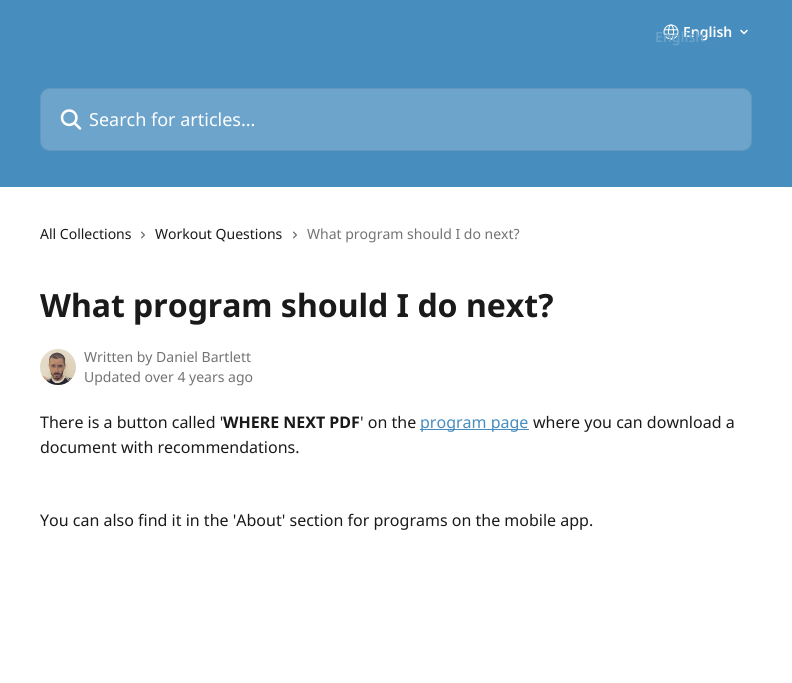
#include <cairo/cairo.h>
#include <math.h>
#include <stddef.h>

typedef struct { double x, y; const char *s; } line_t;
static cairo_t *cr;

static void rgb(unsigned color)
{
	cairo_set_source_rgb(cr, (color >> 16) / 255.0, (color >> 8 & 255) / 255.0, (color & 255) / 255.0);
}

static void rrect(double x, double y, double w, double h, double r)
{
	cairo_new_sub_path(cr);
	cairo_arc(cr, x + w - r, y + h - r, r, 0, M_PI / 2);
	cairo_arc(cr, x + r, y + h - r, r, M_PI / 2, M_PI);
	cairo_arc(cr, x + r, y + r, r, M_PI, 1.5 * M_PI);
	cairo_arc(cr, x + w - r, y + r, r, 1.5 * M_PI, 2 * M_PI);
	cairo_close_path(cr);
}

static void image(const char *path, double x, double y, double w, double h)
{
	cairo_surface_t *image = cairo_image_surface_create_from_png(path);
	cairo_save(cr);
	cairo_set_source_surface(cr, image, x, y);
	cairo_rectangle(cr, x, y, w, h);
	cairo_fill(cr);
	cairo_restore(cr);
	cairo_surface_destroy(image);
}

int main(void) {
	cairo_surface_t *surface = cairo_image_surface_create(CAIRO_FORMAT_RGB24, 792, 683);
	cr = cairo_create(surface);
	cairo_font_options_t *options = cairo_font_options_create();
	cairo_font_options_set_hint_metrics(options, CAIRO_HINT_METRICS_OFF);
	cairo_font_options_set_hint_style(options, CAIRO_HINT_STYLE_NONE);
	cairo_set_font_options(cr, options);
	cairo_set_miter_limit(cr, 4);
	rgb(0xffffff);
	cairo_paint(cr);
	rgb(0x478dbe);
	cairo_rectangle(cr, 0, 0, 792, 187);
	cairo_fill(cr);
	image("img/1.png", 663, 24, 16, 16);
	cairo_new_path(cr);
	cairo_move_to(cr, 741, 30.5);
	cairo_line_to(cr, 744, 33.5);
	cairo_line_to(cr, 747, 30.5);
	rgb(0xffffff);
	cairo_set_line_width(cr, 1.5);
	cairo_set_line_cap(cr, CAIRO_LINE_CAP_ROUND);
	cairo_set_line_join(cr, CAIRO_LINE_JOIN_ROUND);
	cairo_stroke(cr);
	cairo_set_source_rgba(cr, 1, 1, 1, 0.2);
	rrect(40, 88, 712, 63, 10);
	cairo_fill(cr);
	rrect(40.5, 88.5, 711, 62, 9.5);
	cairo_set_source_rgba(cr, 0, 0, 0, 0.08);
	cairo_set_line_width(cr, 1);
	cairo_set_line_cap(cr, CAIRO_LINE_CAP_BUTT);
	cairo_set_line_join(cr, CAIRO_LINE_JOIN_MITER);
	cairo_stroke(cr);
	image("img/2.png", 60, 109, 22, 21);
	image("img/3.png", 141, 231, 4, 8);
	image("img/3.png", 293, 231, 4, 8);
	image("img/4.png", 40, 349, 36, 36);
	rgb(0x468cbe);
	cairo_rectangle(cr, 420, 429, 109, 1);
	cairo_fill(cr);
	cairo_select_font_face(cr, "Noto Sans SemiBold", CAIRO_FONT_SLANT_NORMAL, CAIRO_FONT_WEIGHT_NORMAL);
	cairo_set_font_size(cr, 14);
	rgb(0xffffff);
	cairo_move_to(cr, 683, 37);
	cairo_show_text(cr, "English");
	rgb(0x69a2ca);
	cairo_move_to(cr, 655, 42);
	cairo_show_text(cr, "English");
	cairo_select_font_face(cr, "Noto Sans", CAIRO_FONT_SLANT_NORMAL, CAIRO_FONT_WEIGHT_NORMAL);
	cairo_set_font_size(cr, 18);
	rgb(0xffffff);
	cairo_move_to(cr, 89, 126);
	cairo_show_text(cr, "Search for articles...");
	cairo_set_font_size(cr, 14);
	rgb(0x1a1a1a);
	cairo_move_to(cr, 40, 239);
	cairo_show_text(cr, "All Collections");
	cairo_move_to(cr, 155, 239);
	cairo_show_text(cr, "Workout Questions");
	rgb(0x737373);
	cairo_move_to(cr, 307, 239);
	cairo_show_text(cr, "What program should I do next?");
	cairo_select_font_face(cr, "Noto Sans", CAIRO_FONT_SLANT_NORMAL, CAIRO_FONT_WEIGHT_BOLD);
	cairo_set_font_size(cr, 32);
	rgb(0x1a1a1a);
	cairo_move_to(cr, 40, 317);
	cairo_show_text(cr, "What program should I do next?");
	cairo_select_font_face(cr, "Noto Sans", CAIRO_FONT_SLANT_NORMAL, CAIRO_FONT_WEIGHT_NORMAL);
	cairo_set_font_size(cr, 14);
	rgb(0x737373);
	cairo_move_to(cr, 84, 362);
	cairo_show_text(cr, "Written by Daniel Bartlett");
	cairo_move_to(cr, 84, 382);
	cairo_show_text(cr, "Updated over 4 years ago");
	cairo_set_font_size(cr, 16);
	rgb(0x1a1a1a);
	cairo_move_to(cr, 40, 428);
	cairo_show_text(cr, "There is a button called '");
	cairo_select_font_face(cr, "Noto Sans", CAIRO_FONT_SLANT_NORMAL, CAIRO_FONT_WEIGHT_BOLD);
	cairo_move_to(cr, 223, 428);
	cairo_show_text(cr, "WHERE NEXT PDF");
	cairo_select_font_face(cr, "Noto Sans", CAIRO_FONT_SLANT_NORMAL, CAIRO_FONT_WEIGHT_NORMAL);
	cairo_move_to(cr, 360, 428);
	cairo_show_text(cr, "' on the");
	rgb(0x468cbe);
	cairo_move_to(cr, 420, 428);
	cairo_show_text(cr, "program page");
	rgb(0x1a1a1a);
	{
		static const line_t items[] = {
			{533, 428, "where you can download a"},
			{40, 453, "document with recommendations."},
			{40, 526, "You can also find it in the 'About' section for programs on the mobile app."},
		};
		for (size_t i = 0; i < sizeof items / sizeof *items; i++) {
			cairo_move_to(cr, items[i].x, items[i].y);
			cairo_show_text(cr, items[i].s);
		}
	}
	cairo_surface_write_to_png(surface, "page.png");
	cairo_font_options_destroy(options);
	cairo_destroy(cr);
	cairo_surface_destroy(surface);
	return 0;
}
